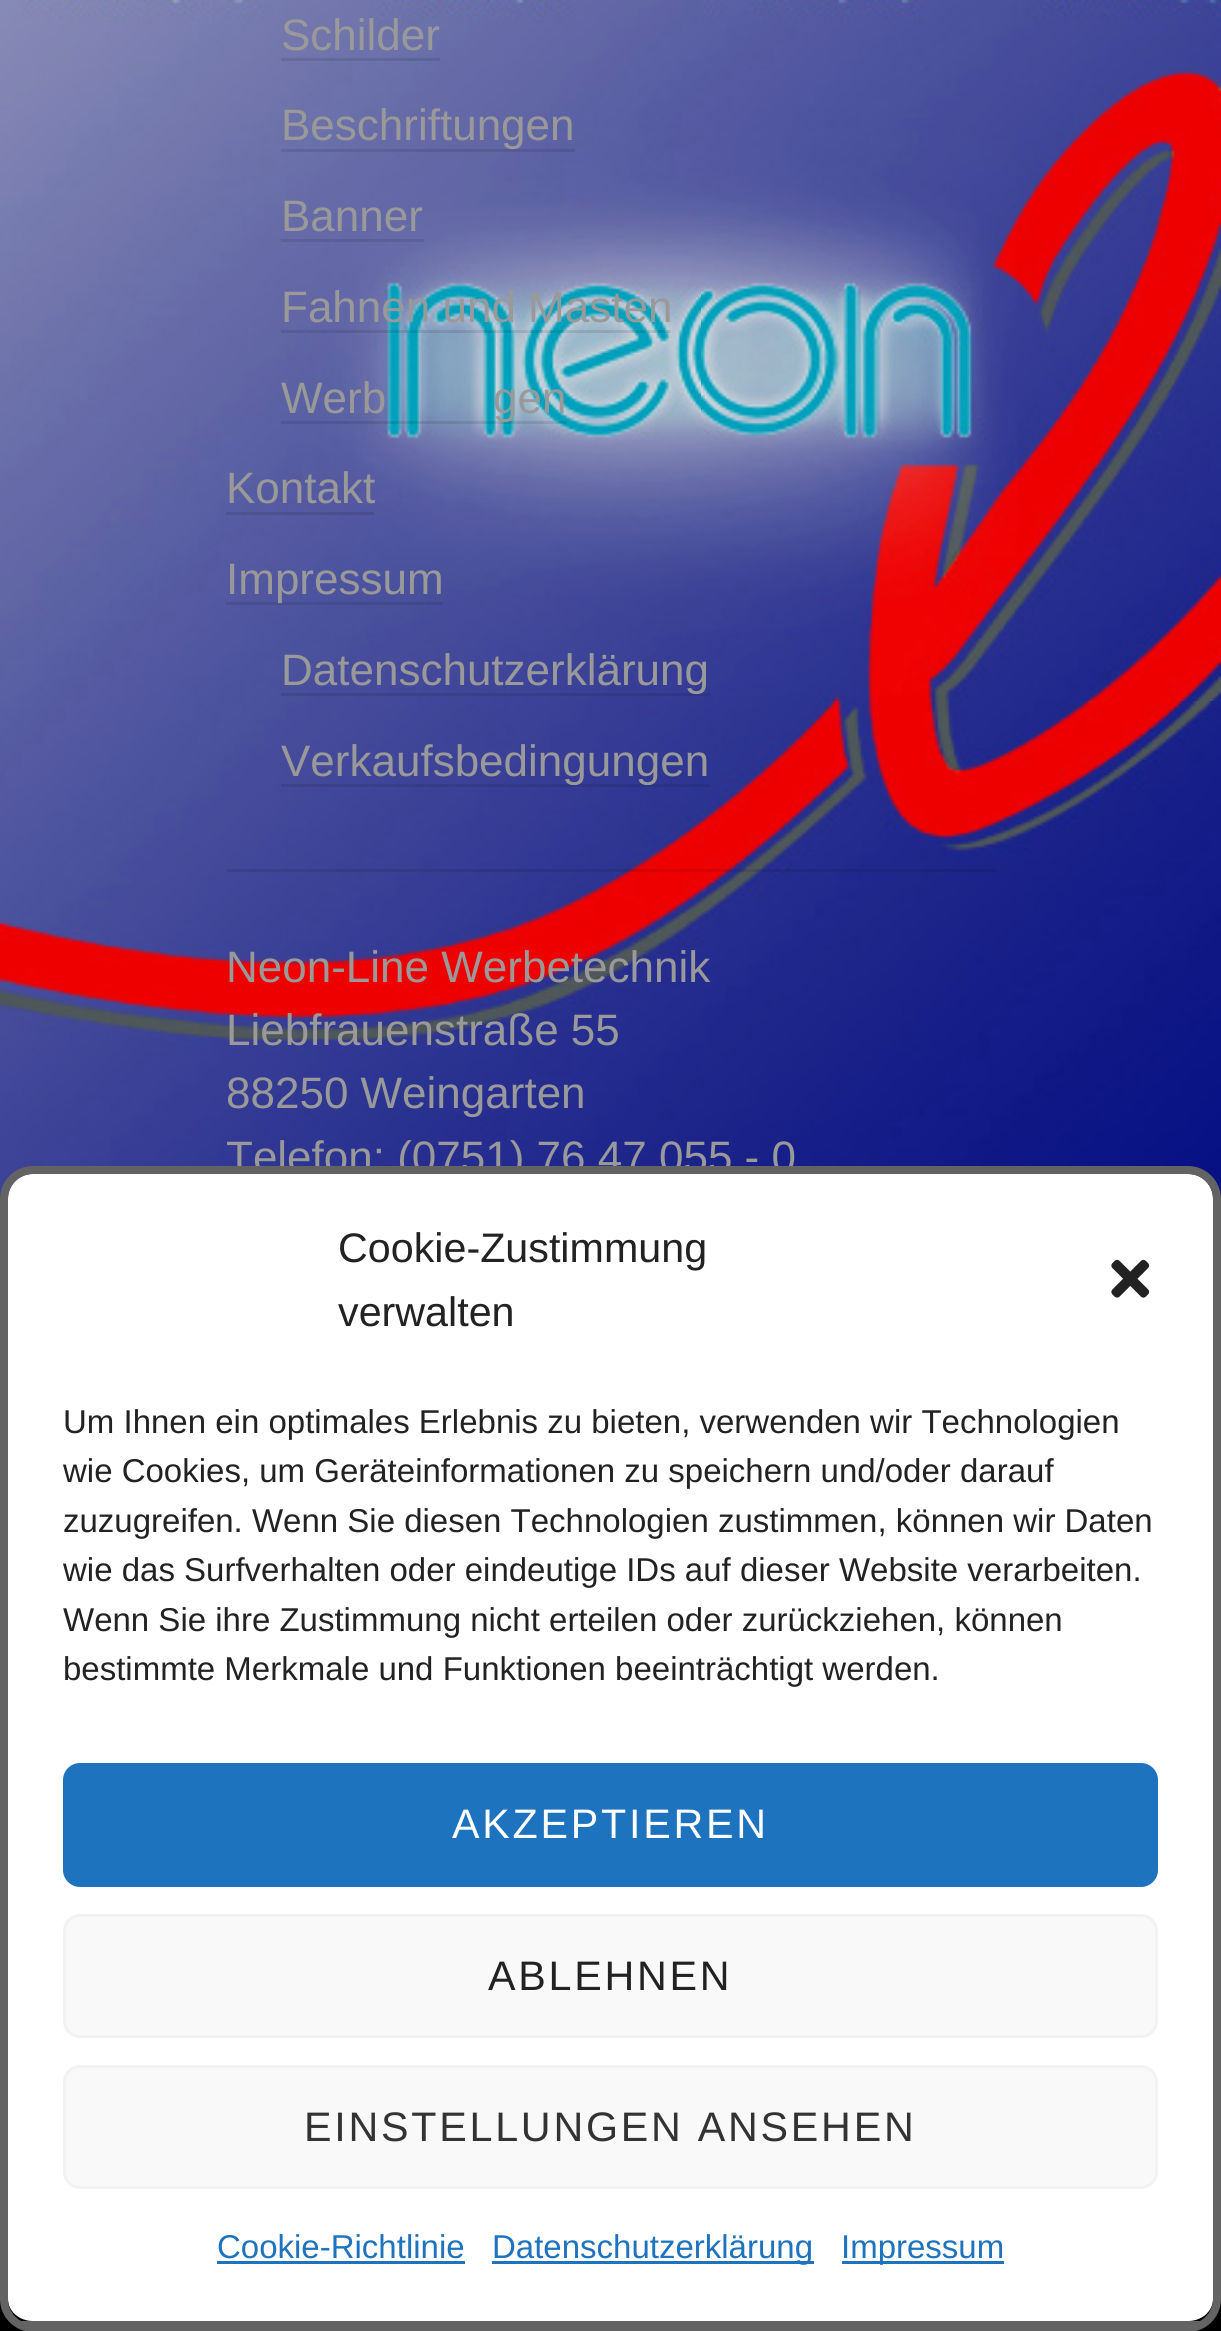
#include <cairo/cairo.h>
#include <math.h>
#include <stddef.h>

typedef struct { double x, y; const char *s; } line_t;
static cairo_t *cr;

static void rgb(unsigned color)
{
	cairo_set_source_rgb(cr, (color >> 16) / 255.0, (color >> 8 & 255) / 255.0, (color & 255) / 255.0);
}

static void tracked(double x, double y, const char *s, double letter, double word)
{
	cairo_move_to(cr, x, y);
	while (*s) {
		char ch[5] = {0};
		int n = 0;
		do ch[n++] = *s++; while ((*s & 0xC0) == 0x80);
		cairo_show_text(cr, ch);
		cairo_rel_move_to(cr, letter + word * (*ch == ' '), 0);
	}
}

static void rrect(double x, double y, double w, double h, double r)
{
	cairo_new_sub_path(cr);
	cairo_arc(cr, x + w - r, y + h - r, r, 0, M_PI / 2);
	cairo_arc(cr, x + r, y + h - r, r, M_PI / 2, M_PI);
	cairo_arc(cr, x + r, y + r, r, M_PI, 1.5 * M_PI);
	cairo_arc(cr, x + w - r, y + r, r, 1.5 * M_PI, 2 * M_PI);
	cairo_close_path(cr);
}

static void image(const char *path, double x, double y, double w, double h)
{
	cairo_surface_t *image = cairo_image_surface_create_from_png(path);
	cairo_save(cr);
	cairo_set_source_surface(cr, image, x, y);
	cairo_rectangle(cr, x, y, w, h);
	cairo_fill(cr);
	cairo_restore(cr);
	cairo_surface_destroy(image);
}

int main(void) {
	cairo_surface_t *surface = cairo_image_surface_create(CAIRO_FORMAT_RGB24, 1221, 2331);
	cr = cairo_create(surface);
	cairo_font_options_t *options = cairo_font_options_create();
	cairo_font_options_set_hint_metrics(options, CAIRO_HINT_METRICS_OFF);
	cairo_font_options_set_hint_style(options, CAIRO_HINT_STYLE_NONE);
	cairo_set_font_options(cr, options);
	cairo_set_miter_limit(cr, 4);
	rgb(0xffffff);
	cairo_paint(cr);
	image("img/1.png", 0, 0, 1221, 1199);
	cairo_set_source_rgba(cr, 0, 0, 0, 0.1);
	cairo_rectangle(cr, 226, 869, 770, 3);
	cairo_fill(cr);
	cairo_rectangle(cr, 281, 58, 159, 3);
	cairo_fill(cr);
	cairo_rectangle(cr, 281, 149, 294, 3);
	cairo_fill(cr);
	cairo_rectangle(cr, 281, 239, 143, 3);
	cairo_fill(cr);
	cairo_rectangle(cr, 281, 330, 390, 3);
	cairo_fill(cr);
	cairo_rectangle(cr, 281, 421, 286, 3);
	cairo_fill(cr);
	cairo_rectangle(cr, 226, 512, 148, 3);
	cairo_fill(cr);
	cairo_rectangle(cr, 226, 602, 217, 3);
	cairo_fill(cr);
	cairo_rectangle(cr, 281, 693, 429, 3);
	cairo_fill(cr);
	cairo_rectangle(cr, 281, 784, 429, 3);
	cairo_fill(cr);
	rgb(0x000000);
	cairo_rectangle(cr, 0, 2299, 1221, 32);
	cairo_fill(cr);
	cairo_select_font_face(cr, "Liberation Sans", CAIRO_FONT_SLANT_NORMAL, CAIRO_FONT_WEIGHT_NORMAL);
	cairo_set_font_size(cr, 44);
	rgb(0x999999);
	{
		static const line_t items[] = {
			{281, 50, "Schilder"},
			{281, 140, "Beschriftungen"},
			{281, 231, "Banner"},
			{281, 322, "Fahnen und Masten"},
			{281, 413, "Werb"},
			{493, 413, "gen"},
			{226, 503, "Kontakt"},
			{226, 594, "Impressum"},
			{281, 685, "Datenschutzerklärung"},
			{281, 776, "Verkaufsbedingungen"},
			{226, 982, "Neon-Line Werbetechnik"},
			{226, 1045, "Liebfrauenstraße 55"},
			{226, 1108, "88250 Weingarten"},
			{226, 1172, "Telefon: (0751) 76 47 055 - 0"},
		};
		for (size_t i = 0; i < sizeof items / sizeof *items; i++) {
			cairo_move_to(cr, items[i].x, items[i].y);
			cairo_show_text(cr, items[i].s);
		}
	}
	rgb(0xffffff);
	cairo_new_path(cr);
	cairo_move_to(cr, 33, 1174);
	cairo_line_to(cr, 1188, 1174);
	cairo_curve_to(cr, 1202, 1174, 1213, 1185, 1213, 1199);
	cairo_line_to(cr, 1213, 2299);
	cairo_curve_to(cr, 1213, 2311, 1202, 2321, 1188, 2321);
	cairo_line_to(cr, 33, 2321);
	cairo_curve_to(cr, 19, 2321, 8, 2311, 8, 2299);
	cairo_line_to(cr, 8, 1199);
	cairo_curve_to(cr, 8, 1185, 19, 1174, 33, 1174);
	cairo_close_path(cr);
	cairo_fill(cr);
	rrect(4, 1170, 1213, 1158, 29);
	rgb(0x636363);
	cairo_set_line_width(cr, 8);
	cairo_stroke(cr);
	cairo_rectangle(cr, 17, 2321, 1188, 3);
	cairo_fill(cr);
	cairo_set_font_size(cr, 41.25);
	rgb(0x222222);
	cairo_move_to(cr, 338, 1262);
	cairo_show_text(cr, "Cookie-Zustimmung");
	cairo_move_to(cr, 338, 1326);
	cairo_show_text(cr, "verwalten");
	image("img/2.png", 1111, 1259, 39, 39);
	cairo_set_font_size(cr, 33);
	{
		static const line_t items[] = {
			{63, 1433, "Um Ihnen ein optimales Erlebnis zu bieten, verwenden wir Technologien"},
			{63, 1482, "wie Cookies, um Geräteinformationen zu speichern und/oder darauf"},
			{63, 1532, "zuzugreifen. Wenn Sie diesen Technologien zustimmen, können wir Daten"},
			{63, 1581, "wie das Surfverhalten oder eindeutige IDs auf dieser Website verarbeiten."},
			{63, 1631, "Wenn Sie ihre Zustimmung nicht erteilen oder zurückziehen, können"},
			{63, 1680, "bestimmte Merkmale und Funktionen beeinträchtigt werden."},
		};
		for (size_t i = 0; i < sizeof items / sizeof *items; i++) {
			cairo_move_to(cr, items[i].x, items[i].y);
			cairo_show_text(cr, items[i].s);
		}
	}
	rgb(0x1e73be);
	rrect(64.5, 1764.5, 1092, 121, 15.5);
	cairo_fill_preserve(cr);
	cairo_set_line_width(cr, 3);
	cairo_stroke(cr);
	cairo_set_font_size(cr, 41.25);
	rgb(0xffffff);
	tracked(452, 1838, "AKZEPTIEREN", 2.75, 0);
	rgb(0xf9f9f9);
	rrect(64.5, 1915.5, 1092, 121, 15.5);
	cairo_fill_preserve(cr);
	rgb(0xf2f2f2);
	cairo_stroke(cr);
	rgb(0x222222);
	tracked(488, 1990, "ABLEHNEN", 2.75, 0);
	rgb(0xf9f9f9);
	rrect(64.5, 2066.5, 1092, 121, 15.5);
	cairo_fill_preserve(cr);
	rgb(0xf2f2f2);
	cairo_stroke(cr);
	rgb(0x333333);
	tracked(304, 2141, "EINSTELLUNGEN ANSEHEN", 2.75, 0);
	cairo_set_font_size(cr, 33);
	rgb(0x1e73be);
	cairo_move_to(cr, 217, 2258);
	cairo_show_text(cr, "Cookie-Richtlinie");
	cairo_rectangle(cr, 217, 2261, 248, 3);
	cairo_fill(cr);
	cairo_rectangle(cr, 492, 2261, 322, 3);
	cairo_fill(cr);
	cairo_move_to(cr, 492, 2258);
	cairo_show_text(cr, "Datenschutzerklärung");
	cairo_rectangle(cr, 842, 2261, 162, 3);
	cairo_fill(cr);
	cairo_move_to(cr, 841, 2258);
	cairo_show_text(cr, "Impressum");
	cairo_surface_write_to_png(surface, "page.png");
	cairo_font_options_destroy(options);
	cairo_destroy(cr);
	cairo_surface_destroy(surface);
	return 0;
}
